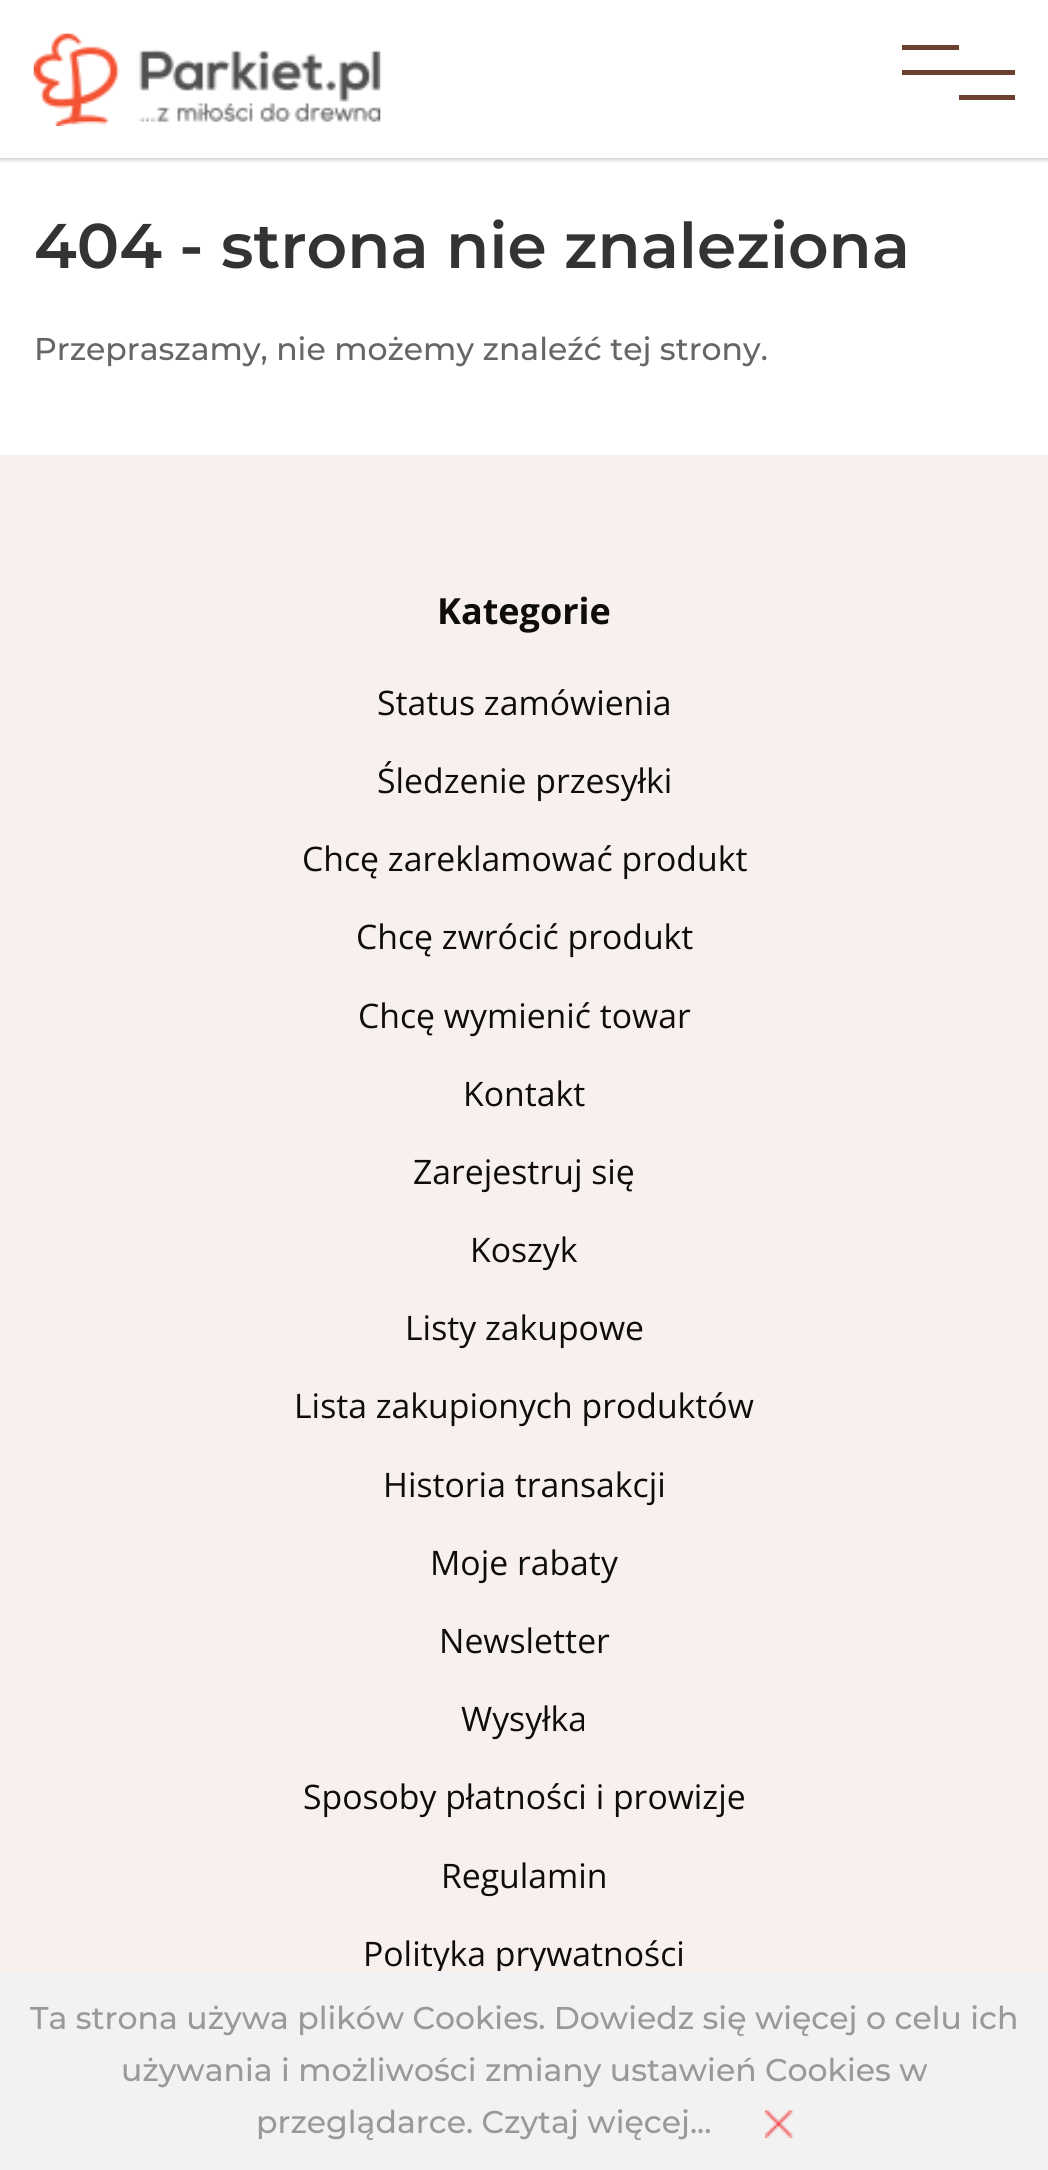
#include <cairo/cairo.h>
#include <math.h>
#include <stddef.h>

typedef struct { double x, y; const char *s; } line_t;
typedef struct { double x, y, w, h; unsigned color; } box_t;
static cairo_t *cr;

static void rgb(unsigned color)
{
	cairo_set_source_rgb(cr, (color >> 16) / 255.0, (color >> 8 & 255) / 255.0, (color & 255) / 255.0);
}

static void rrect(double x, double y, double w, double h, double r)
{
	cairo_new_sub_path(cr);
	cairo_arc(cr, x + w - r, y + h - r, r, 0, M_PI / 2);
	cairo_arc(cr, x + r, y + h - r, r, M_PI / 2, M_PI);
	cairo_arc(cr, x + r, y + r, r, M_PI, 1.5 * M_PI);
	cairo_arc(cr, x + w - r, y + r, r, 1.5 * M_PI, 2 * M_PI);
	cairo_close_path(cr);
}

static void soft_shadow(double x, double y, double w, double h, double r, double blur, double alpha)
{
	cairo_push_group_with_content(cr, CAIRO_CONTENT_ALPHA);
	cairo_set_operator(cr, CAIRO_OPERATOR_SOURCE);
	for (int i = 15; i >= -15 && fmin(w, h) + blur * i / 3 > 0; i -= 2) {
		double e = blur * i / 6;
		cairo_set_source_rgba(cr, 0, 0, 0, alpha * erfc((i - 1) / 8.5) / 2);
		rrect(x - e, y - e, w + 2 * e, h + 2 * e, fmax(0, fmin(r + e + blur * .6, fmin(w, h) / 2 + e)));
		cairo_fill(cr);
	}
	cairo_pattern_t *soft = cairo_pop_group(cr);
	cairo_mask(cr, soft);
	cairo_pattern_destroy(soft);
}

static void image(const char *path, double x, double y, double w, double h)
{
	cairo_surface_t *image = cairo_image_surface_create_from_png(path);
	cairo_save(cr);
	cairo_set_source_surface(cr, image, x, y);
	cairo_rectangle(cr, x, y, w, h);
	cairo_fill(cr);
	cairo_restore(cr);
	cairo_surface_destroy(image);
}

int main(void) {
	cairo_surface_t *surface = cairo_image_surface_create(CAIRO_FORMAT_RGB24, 1048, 2170);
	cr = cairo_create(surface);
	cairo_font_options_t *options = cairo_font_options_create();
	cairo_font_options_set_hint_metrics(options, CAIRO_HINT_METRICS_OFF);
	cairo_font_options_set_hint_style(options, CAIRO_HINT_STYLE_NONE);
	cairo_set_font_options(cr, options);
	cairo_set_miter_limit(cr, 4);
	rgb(0xffffff);
	cairo_paint(cr);
	rgb(0x000000);
	soft_shadow(0, 2, 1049, 158, 0, 2, 0.2);
	rgb(0xffffff);
	cairo_rectangle(cr, 0, 0, 1048, 158);
	cairo_fill(cr);
	image("img/1.png", 33, 33, 348, 93);
	{
		static const box_t items[] = {
			{902, 45, 57, 5, 0x6b402e},
			{902, 70, 113, 5, 0x6b402e},
			{959, 95, 56, 5, 0x6b402e},
			{0, 455, 1048, 1516, 0xf8f0ed},
		};
		for (size_t i = 0; i < sizeof items / sizeof *items; i++) {
			rgb(items[i].color);
			cairo_rectangle(cr, items[i].x, items[i].y, items[i].w, items[i].h);
			cairo_fill(cr);
		}
	}
	cairo_select_font_face(cr, "Montserrat SemiBold", CAIRO_FONT_SLANT_NORMAL, CAIRO_FONT_WEIGHT_NORMAL);
	cairo_set_font_size(cr, 63);
	rgb(0x333333);
	cairo_move_to(cr, 34, 268);
	cairo_show_text(cr, "404 - strona nie znaleziona");
	cairo_select_font_face(cr, "Montserrat Medium", CAIRO_FONT_SLANT_NORMAL, CAIRO_FONT_WEIGHT_NORMAL);
	cairo_set_font_size(cr, 31.5);
	rgb(0x666666);
	cairo_move_to(cr, 34, 360);
	cairo_show_text(cr, "Przepraszamy, nie możemy znaleźć tej strony.");
	cairo_select_font_face(cr, "Open Sans", CAIRO_FONT_SLANT_NORMAL, CAIRO_FONT_WEIGHT_BOLD);
	cairo_set_font_size(cr, 36);
	rgb(0x0f0d0b);
	cairo_move_to(cr, 437, 624);
	cairo_show_text(cr, "Kategorie");
	cairo_select_font_face(cr, "Open Sans", CAIRO_FONT_SLANT_NORMAL, CAIRO_FONT_WEIGHT_NORMAL);
	cairo_set_font_size(cr, 33.75);
	{
		static const line_t items[] = {
			{377, 715, "Status zamówienia"},
			{377, 793, "Śledzenie przesyłki"},
			{302, 871, "Chcę zareklamować produkt"},
			{356, 949, "Chcę zwrócić produkt"},
			{358, 1028, "Chcę wymienić towar"},
			{463, 1106, "Kontakt"},
			{413, 1184, "Zarejestruj się"},
			{470, 1262, "Koszyk"},
			{405, 1340, "Listy zakupowe"},
			{294, 1418, "Lista zakupionych produktów"},
			{383, 1497, "Historia transakcji"},
			{430, 1575, "Moje rabaty"},
			{439, 1653, "Newsletter"},
			{461, 1731, "Wysyłka"},
			{303, 1809, "Sposoby płatności i prowizje"},
			{441, 1888, "Regulamin"},
			{363, 1966, "Polityka prywatności"},
		};
		for (size_t i = 0; i < sizeof items / sizeof *items; i++) {
			cairo_move_to(cr, items[i].x, items[i].y);
			cairo_show_text(cr, items[i].s);
		}
	}
	rgb(0xf2f2f2);
	cairo_rectangle(cr, 0, 1971, 1048, 199);
	cairo_fill(cr);
	cairo_select_font_face(cr, "Montserrat Medium", CAIRO_FONT_SLANT_NORMAL, CAIRO_FONT_WEIGHT_NORMAL);
	cairo_set_font_size(cr, 31.5);
	rgb(0x999999);
	{
		static const line_t items[] = {
			{30, 2029, "Ta strona używa plików Cookies. Dowiedz się więcej o celu ich"},
			{121, 2081, "używania i możliwości zmiany ustawień Cookies w"},
			{256, 2133, "przeglądarce. Czytaj więcej..."},
		};
		for (size_t i = 0; i < sizeof items / sizeof *items; i++) {
			cairo_move_to(cr, items[i].x, items[i].y);
			cairo_show_text(cr, items[i].s);
		}
	}
	image("img/2.png", 765, 2110, 28, 28);
	cairo_surface_write_to_png(surface, "page.png");
	cairo_font_options_destroy(options);
	cairo_destroy(cr);
	cairo_surface_destroy(surface);
	return 0;
}
